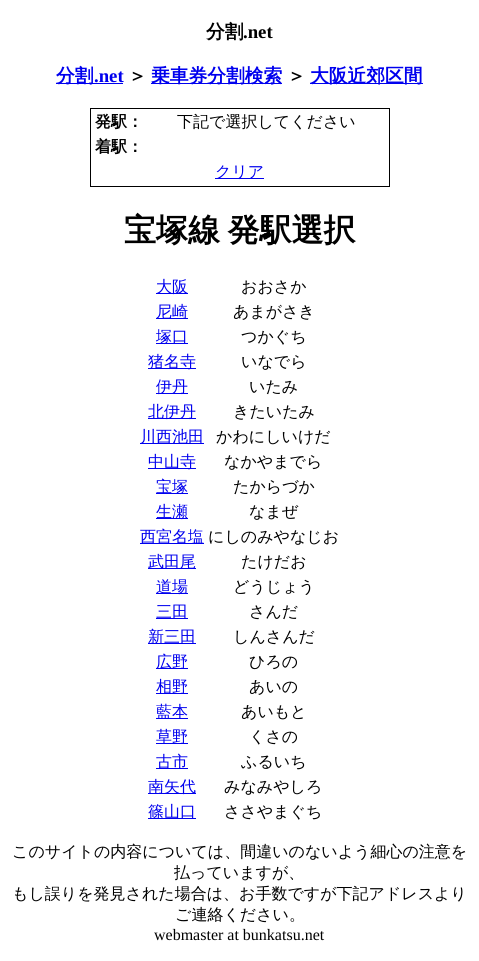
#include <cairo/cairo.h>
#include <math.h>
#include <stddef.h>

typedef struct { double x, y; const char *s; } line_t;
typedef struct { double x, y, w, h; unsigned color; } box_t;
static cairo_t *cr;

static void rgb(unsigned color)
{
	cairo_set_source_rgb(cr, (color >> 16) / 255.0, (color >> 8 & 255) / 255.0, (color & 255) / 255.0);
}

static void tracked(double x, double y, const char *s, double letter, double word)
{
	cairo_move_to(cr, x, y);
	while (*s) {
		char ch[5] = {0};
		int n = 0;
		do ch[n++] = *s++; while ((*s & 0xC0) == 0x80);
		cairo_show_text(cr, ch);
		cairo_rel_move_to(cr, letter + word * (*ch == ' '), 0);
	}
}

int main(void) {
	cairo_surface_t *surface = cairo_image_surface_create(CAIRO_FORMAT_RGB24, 479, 961);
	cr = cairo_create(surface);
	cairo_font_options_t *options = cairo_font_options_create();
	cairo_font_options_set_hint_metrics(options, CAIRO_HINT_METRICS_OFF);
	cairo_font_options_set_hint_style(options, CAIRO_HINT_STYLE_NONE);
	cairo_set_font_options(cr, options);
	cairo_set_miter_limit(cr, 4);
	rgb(0xffffff);
	cairo_paint(cr);
	{
		static const box_t items[] = {
			{56, 83, 67, 1, 0x0000ee},
			{151, 83, 131, 1, 0x0000ee},
			{310, 83, 113, 1, 0x0000ee},
		};
		for (size_t i = 0; i < sizeof items / sizeof *items; i++) {
			rgb(items[i].color);
			cairo_rectangle(cr, items[i].x, items[i].y, items[i].w, items[i].h);
			cairo_fill(cr);
		}
	}
	cairo_rectangle(cr, 90.5, 108.5, 299, 78);
	rgb(0x000000);
	cairo_set_line_width(cr, 1);
	cairo_stroke(cr);
	{
		static const box_t items[] = {
			{215, 178, 49, 1, 0x0000ee},
			{156, 293, 32, 1, 0x0000ee},
			{156, 318, 32, 1, 0x0000ee},
			{156, 343, 32, 1, 0x0000ee},
			{148, 368, 48, 1, 0x0000ee},
			{156, 393, 32, 1, 0x0000ee},
			{148, 418, 48, 1, 0x0000ee},
			{140, 443, 64, 1, 0x0000ee},
			{148, 468, 48, 1, 0x0000ee},
			{156, 493, 32, 1, 0x0000ee},
			{156, 518, 32, 1, 0x0000ee},
			{140, 543, 64, 1, 0x0000ee},
			{148, 568, 48, 1, 0x0000ee},
			{156, 593, 32, 1, 0x0000ee},
			{156, 618, 32, 1, 0x0000ee},
			{148, 643, 48, 1, 0x0000ee},
			{156, 668, 32, 1, 0x0000ee},
			{156, 693, 32, 1, 0x0000ee},
			{156, 718, 32, 1, 0x0000ee},
			{156, 743, 32, 1, 0x0000ee},
			{156, 768, 32, 1, 0x0000ee},
			{148, 793, 48, 1, 0x0000ee},
			{148, 818, 48, 1, 0x0000ee},
		};
		for (size_t i = 0; i < sizeof items / sizeof *items; i++) {
			rgb(items[i].color);
			cairo_rectangle(cr, items[i].x, items[i].y, items[i].w, items[i].h);
			cairo_fill(cr);
		}
	}
	cairo_select_font_face(cr, "WenQuanYi Zen Hei", CAIRO_FONT_SLANT_NORMAL, CAIRO_FONT_WEIGHT_BOLD);
	cairo_set_font_size(cr, 18.75);
	rgb(0x000000);
	cairo_move_to(cr, 206, 38);
	cairo_show_text(cr, "分割");
	cairo_select_font_face(cr, "Liberation Serif", CAIRO_FONT_SLANT_NORMAL, CAIRO_FONT_WEIGHT_BOLD);
	cairo_move_to(cr, 243, 38);
	cairo_show_text(cr, ".net");
	cairo_select_font_face(cr, "WenQuanYi Zen Hei", CAIRO_FONT_SLANT_NORMAL, CAIRO_FONT_WEIGHT_BOLD);
	rgb(0x0000ee);
	cairo_move_to(cr, 56, 82);
	cairo_show_text(cr, "分割");
	cairo_select_font_face(cr, "Liberation Serif", CAIRO_FONT_SLANT_NORMAL, CAIRO_FONT_WEIGHT_BOLD);
	cairo_move_to(cr, 94, 82);
	cairo_show_text(cr, ".net");
	cairo_select_font_face(cr, "WenQuanYi Zen Hei", CAIRO_FONT_SLANT_NORMAL, CAIRO_FONT_WEIGHT_BOLD);
	rgb(0x000000);
	cairo_move_to(cr, 128, 82);
	cairo_show_text(cr, "＞");
	rgb(0x0000ee);
	cairo_move_to(cr, 151, 82);
	cairo_show_text(cr, "乗車券分割検索");
	rgb(0x000000);
	cairo_move_to(cr, 287, 82);
	cairo_show_text(cr, "＞");
	rgb(0x0000ee);
	cairo_move_to(cr, 310, 82);
	cairo_show_text(cr, "大阪近郊区間");
	cairo_set_font_size(cr, 16);
	rgb(0x000000);
	cairo_move_to(cr, 95, 127);
	cairo_show_text(cr, "発駅：");
	cairo_select_font_face(cr, "WenQuanYi Zen Hei Medium", CAIRO_FONT_SLANT_NORMAL, CAIRO_FONT_WEIGHT_NORMAL);
	cairo_move_to(cr, 177, 127);
	cairo_show_text(cr, "下記で選択してください");
	cairo_select_font_face(cr, "WenQuanYi Zen Hei", CAIRO_FONT_SLANT_NORMAL, CAIRO_FONT_WEIGHT_BOLD);
	cairo_move_to(cr, 95, 152);
	cairo_show_text(cr, "着駅：");
	cairo_select_font_face(cr, "WenQuanYi Zen Hei Medium", CAIRO_FONT_SLANT_NORMAL, CAIRO_FONT_WEIGHT_NORMAL);
	rgb(0x0000ee);
	cairo_move_to(cr, 215, 177);
	cairo_show_text(cr, "クリア");
	cairo_select_font_face(cr, "WenQuanYi Zen Hei", CAIRO_FONT_SLANT_NORMAL, CAIRO_FONT_WEIGHT_BOLD);
	cairo_set_font_size(cr, 32);
	rgb(0x000000);
	tracked(124, 241, "宝塚線 発駅選択", 0, -2);
	cairo_select_font_face(cr, "WenQuanYi Zen Hei Medium", CAIRO_FONT_SLANT_NORMAL, CAIRO_FONT_WEIGHT_NORMAL);
	cairo_set_font_size(cr, 16);
	rgb(0x0000ee);
	cairo_move_to(cr, 156, 292);
	cairo_show_text(cr, "大阪");
	rgb(0x000000);
	cairo_move_to(cr, 241, 292);
	cairo_show_text(cr, "おおさか");
	rgb(0x0000ee);
	cairo_move_to(cr, 156, 317);
	cairo_show_text(cr, "尼崎");
	rgb(0x000000);
	cairo_move_to(cr, 233, 317);
	cairo_show_text(cr, "あまがさき");
	rgb(0x0000ee);
	cairo_move_to(cr, 156, 342);
	cairo_show_text(cr, "塚口");
	rgb(0x000000);
	cairo_move_to(cr, 241, 342);
	cairo_show_text(cr, "つかぐち");
	rgb(0x0000ee);
	cairo_move_to(cr, 148, 367);
	cairo_show_text(cr, "猪名寺");
	rgb(0x000000);
	cairo_move_to(cr, 241, 367);
	cairo_show_text(cr, "いなでら");
	rgb(0x0000ee);
	cairo_move_to(cr, 156, 392);
	cairo_show_text(cr, "伊丹");
	rgb(0x000000);
	cairo_move_to(cr, 249, 392);
	cairo_show_text(cr, "いたみ");
	rgb(0x0000ee);
	cairo_move_to(cr, 148, 417);
	cairo_show_text(cr, "北伊丹");
	rgb(0x000000);
	cairo_move_to(cr, 233, 417);
	cairo_show_text(cr, "きたいたみ");
	rgb(0x0000ee);
	cairo_move_to(cr, 140, 442);
	cairo_show_text(cr, "川西池田");
	rgb(0x000000);
	cairo_move_to(cr, 216, 442);
	cairo_show_text(cr, "かわにしいけだ");
	rgb(0x0000ee);
	cairo_move_to(cr, 148, 467);
	cairo_show_text(cr, "中山寺");
	rgb(0x000000);
	cairo_move_to(cr, 224, 467);
	cairo_show_text(cr, "なかやまでら");
	rgb(0x0000ee);
	cairo_move_to(cr, 156, 492);
	cairo_show_text(cr, "宝塚");
	rgb(0x000000);
	cairo_move_to(cr, 233, 492);
	cairo_show_text(cr, "たからづか");
	rgb(0x0000ee);
	cairo_move_to(cr, 156, 517);
	cairo_show_text(cr, "生瀬");
	rgb(0x000000);
	cairo_move_to(cr, 249, 517);
	cairo_show_text(cr, "なまぜ");
	rgb(0x0000ee);
	cairo_move_to(cr, 140, 542);
	cairo_show_text(cr, "西宮名塩");
	rgb(0x000000);
	cairo_move_to(cr, 208, 542);
	cairo_show_text(cr, "にしのみやなじお");
	rgb(0x0000ee);
	cairo_move_to(cr, 148, 567);
	cairo_show_text(cr, "武田尾");
	rgb(0x000000);
	cairo_move_to(cr, 241, 567);
	cairo_show_text(cr, "たけだお");
	rgb(0x0000ee);
	cairo_move_to(cr, 156, 592);
	cairo_show_text(cr, "道場");
	rgb(0x000000);
	cairo_move_to(cr, 233, 592);
	cairo_show_text(cr, "どうじょう");
	rgb(0x0000ee);
	cairo_move_to(cr, 156, 617);
	cairo_show_text(cr, "三田");
	rgb(0x000000);
	cairo_move_to(cr, 249, 617);
	cairo_show_text(cr, "さんだ");
	rgb(0x0000ee);
	cairo_move_to(cr, 148, 642);
	cairo_show_text(cr, "新三田");
	rgb(0x000000);
	cairo_move_to(cr, 233, 642);
	cairo_show_text(cr, "しんさんだ");
	rgb(0x0000ee);
	cairo_move_to(cr, 156, 667);
	cairo_show_text(cr, "広野");
	rgb(0x000000);
	cairo_move_to(cr, 249, 667);
	cairo_show_text(cr, "ひろの");
	rgb(0x0000ee);
	cairo_move_to(cr, 156, 692);
	cairo_show_text(cr, "相野");
	rgb(0x000000);
	cairo_move_to(cr, 249, 692);
	cairo_show_text(cr, "あいの");
	rgb(0x0000ee);
	cairo_move_to(cr, 156, 717);
	cairo_show_text(cr, "藍本");
	rgb(0x000000);
	cairo_move_to(cr, 241, 717);
	cairo_show_text(cr, "あいもと");
	rgb(0x0000ee);
	cairo_move_to(cr, 156, 742);
	cairo_show_text(cr, "草野");
	rgb(0x000000);
	cairo_move_to(cr, 249, 742);
	cairo_show_text(cr, "くさの");
	rgb(0x0000ee);
	cairo_move_to(cr, 156, 767);
	cairo_show_text(cr, "古市");
	rgb(0x000000);
	cairo_move_to(cr, 241, 767);
	cairo_show_text(cr, "ふるいち");
	rgb(0x0000ee);
	cairo_move_to(cr, 148, 792);
	cairo_show_text(cr, "南矢代");
	rgb(0x000000);
	cairo_move_to(cr, 224, 792);
	cairo_show_text(cr, "みなみやしろ");
	rgb(0x0000ee);
	cairo_move_to(cr, 148, 817);
	cairo_show_text(cr, "篠山口");
	rgb(0x000000);
	{
		static const line_t items[] = {
			{224, 817, "ささやまぐち"},
			{12, 857, "このサイトの内容については、間違いのないよう細心の注意を"},
			{174, 878, "払っていますが、"},
			{12, 899, "もし誤りを発見された場合は、お手数ですが下記アドレスより"},
			{175, 920, "ご連絡ください。"},
		};
		for (size_t i = 0; i < sizeof items / sizeof *items; i++) {
			cairo_move_to(cr, items[i].x, items[i].y);
			cairo_show_text(cr, items[i].s);
		}
	}
	cairo_select_font_face(cr, "Liberation Serif", CAIRO_FONT_SLANT_NORMAL, CAIRO_FONT_WEIGHT_NORMAL);
	cairo_move_to(cr, 154, 940);
	cairo_show_text(cr, "webmaster at bunkatsu.net");
	cairo_surface_write_to_png(surface, "page.png");
	cairo_font_options_destroy(options);
	cairo_destroy(cr);
	cairo_surface_destroy(surface);
	return 0;
}
